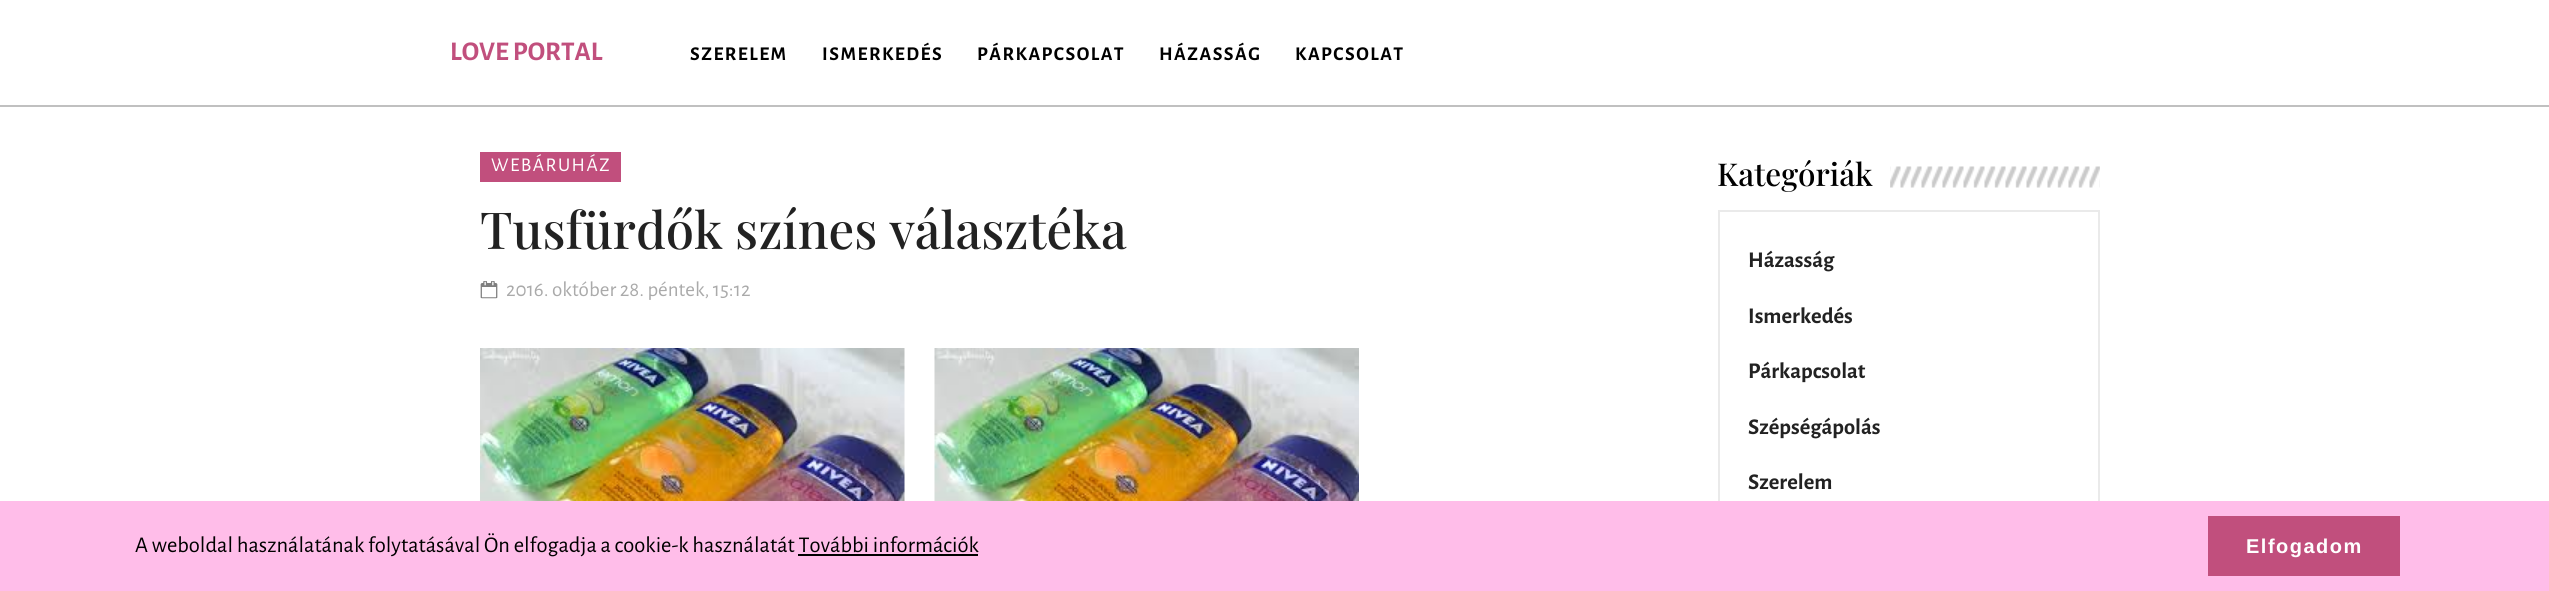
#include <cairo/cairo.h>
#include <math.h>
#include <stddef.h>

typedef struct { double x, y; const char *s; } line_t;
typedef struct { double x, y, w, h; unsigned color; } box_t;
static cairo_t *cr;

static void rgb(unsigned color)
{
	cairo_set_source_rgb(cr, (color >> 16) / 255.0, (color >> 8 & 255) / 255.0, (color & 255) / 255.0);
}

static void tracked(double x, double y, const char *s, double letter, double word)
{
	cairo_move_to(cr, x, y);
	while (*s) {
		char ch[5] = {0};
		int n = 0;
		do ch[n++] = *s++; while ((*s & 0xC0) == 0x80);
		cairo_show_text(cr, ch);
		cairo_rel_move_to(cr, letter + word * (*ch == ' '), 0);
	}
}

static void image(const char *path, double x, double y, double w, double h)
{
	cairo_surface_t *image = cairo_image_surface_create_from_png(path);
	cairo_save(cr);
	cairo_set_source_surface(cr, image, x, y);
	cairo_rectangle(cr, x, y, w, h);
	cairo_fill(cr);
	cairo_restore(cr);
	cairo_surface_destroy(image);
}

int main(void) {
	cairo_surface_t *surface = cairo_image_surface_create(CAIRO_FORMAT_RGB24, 2549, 591);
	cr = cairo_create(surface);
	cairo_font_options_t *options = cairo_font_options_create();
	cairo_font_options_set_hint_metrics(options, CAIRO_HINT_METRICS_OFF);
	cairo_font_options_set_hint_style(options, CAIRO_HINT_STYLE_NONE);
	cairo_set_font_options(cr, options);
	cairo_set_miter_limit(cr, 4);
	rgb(0xffffff);
	cairo_paint(cr);
	rgb(0xc0c0c0);
	cairo_rectangle(cr, 0, 105, 2549, 2);
	cairo_fill(cr);
	rgb(0xc14f7d);
	cairo_rectangle(cr, 480, 152, 141, 30);
	cairo_fill(cr);
	image("img/1.png", 480, 281, 18, 18);
	image("img/2.png", 480, 348, 425, 153);
	image("img/3.png", 934, 348, 425, 153);
	image("img/4.png", 1890, 166, 210, 22);
	cairo_rectangle(cr, 1719, 211, 380, 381);
	rgb(0xeaeaea);
	cairo_stroke(cr);
	{
		static const box_t items[] = {
			{0, 501, 2549, 90, 0xffbde9},
			{798, 554, 180, 2, 0x000000},
			{2208, 516, 192, 60, 0xc14f7d},
		};
		for (size_t i = 0; i < sizeof items / sizeof *items; i++) {
			rgb(items[i].color);
			cairo_rectangle(cr, items[i].x, items[i].y, items[i].w, items[i].h);
			cairo_fill(cr);
		}
	}
	cairo_select_font_face(cr, "Alegreya Sans", CAIRO_FONT_SLANT_NORMAL, CAIRO_FONT_WEIGHT_BOLD);
	cairo_set_font_size(cr, 27);
	cairo_move_to(cr, 450, 60);
	cairo_show_text(cr, "LOVE PORTAL");
	cairo_set_font_size(cr, 19.5);
	rgb(0x000000);
	{
		static const line_t items[] = {
			{690, 60, "SZERELEM"},
			{822, 60, "ISMERKEDÉS"},
			{977, 60, "PÁRKAPCSOLAT"},
			{1159, 60, "HÁZASSÁG"},
			{1295, 60, "KAPCSOLAT"},
		};
		for (size_t i = 0; i < sizeof items / sizeof *items; i++) {
			tracked(items[i].x, items[i].y, items[i].s, 1.5, 0);
		}
	}
	cairo_select_font_face(cr, "Alegreya Sans", CAIRO_FONT_SLANT_NORMAL, CAIRO_FONT_WEIGHT_NORMAL);
	rgb(0xffffff);
	tracked(491, 171, "WEBÁRUHÁZ", 1.5, 0);
	cairo_select_font_face(cr, "Playfair Display Medium", CAIRO_FONT_SLANT_NORMAL, CAIRO_FONT_WEIGHT_NORMAL);
	cairo_set_font_size(cr, 51);
	rgb(0x222222);
	cairo_move_to(cr, 480, 249);
	cairo_show_text(cr, "Tusfürdők színes választéka");
	cairo_select_font_face(cr, "Alegreya Sans", CAIRO_FONT_SLANT_NORMAL, CAIRO_FONT_WEIGHT_NORMAL);
	cairo_set_font_size(cr, 21);
	rgb(0xaaaaaa);
	cairo_move_to(cr, 506, 296);
	cairo_show_text(cr, "2016. október 28. péntek, 15:12");
	cairo_select_font_face(cr, "Playfair Display Medium", CAIRO_FONT_SLANT_NORMAL, CAIRO_FONT_WEIGHT_NORMAL);
	cairo_set_font_size(cr, 31.5);
	rgb(0x000000);
	cairo_move_to(cr, 1717, 186);
	cairo_show_text(cr, "Kategóriák");
	cairo_select_font_face(cr, "Alegreya Sans", CAIRO_FONT_SLANT_NORMAL, CAIRO_FONT_WEIGHT_BOLD);
	cairo_set_font_size(cr, 22.5);
	rgb(0x222222);
	{
		static const line_t items[] = {
			{1748, 267, "Házasság"},
			{1748, 323, "Ismerkedés"},
			{1748, 378, "Párkapcsolat"},
			{1748, 434, "Szépségápolás"},
			{1748, 489, "Szerelem"},
		};
		for (size_t i = 0; i < sizeof items / sizeof *items; i++) {
			cairo_move_to(cr, items[i].x, items[i].y);
			cairo_show_text(cr, items[i].s);
		}
	}
	cairo_select_font_face(cr, "Alegreya Sans", CAIRO_FONT_SLANT_NORMAL, CAIRO_FONT_WEIGHT_NORMAL);
	rgb(0x000000);
	cairo_move_to(cr, 135, 552);
	cairo_show_text(cr, "A weboldal használatának folytatásával Ön elfogadja a cookie-k használatát További információk");
	cairo_select_font_face(cr, "Liberation Sans", CAIRO_FONT_SLANT_NORMAL, CAIRO_FONT_WEIGHT_BOLD);
	cairo_set_font_size(cr, 20);
	rgb(0xffffff);
	tracked(2246, 553, "Elfogadom", 1.5, 0);
	cairo_surface_write_to_png(surface, "page.png");
	cairo_font_options_destroy(options);
	cairo_destroy(cr);
	cairo_surface_destroy(surface);
	return 0;
}
